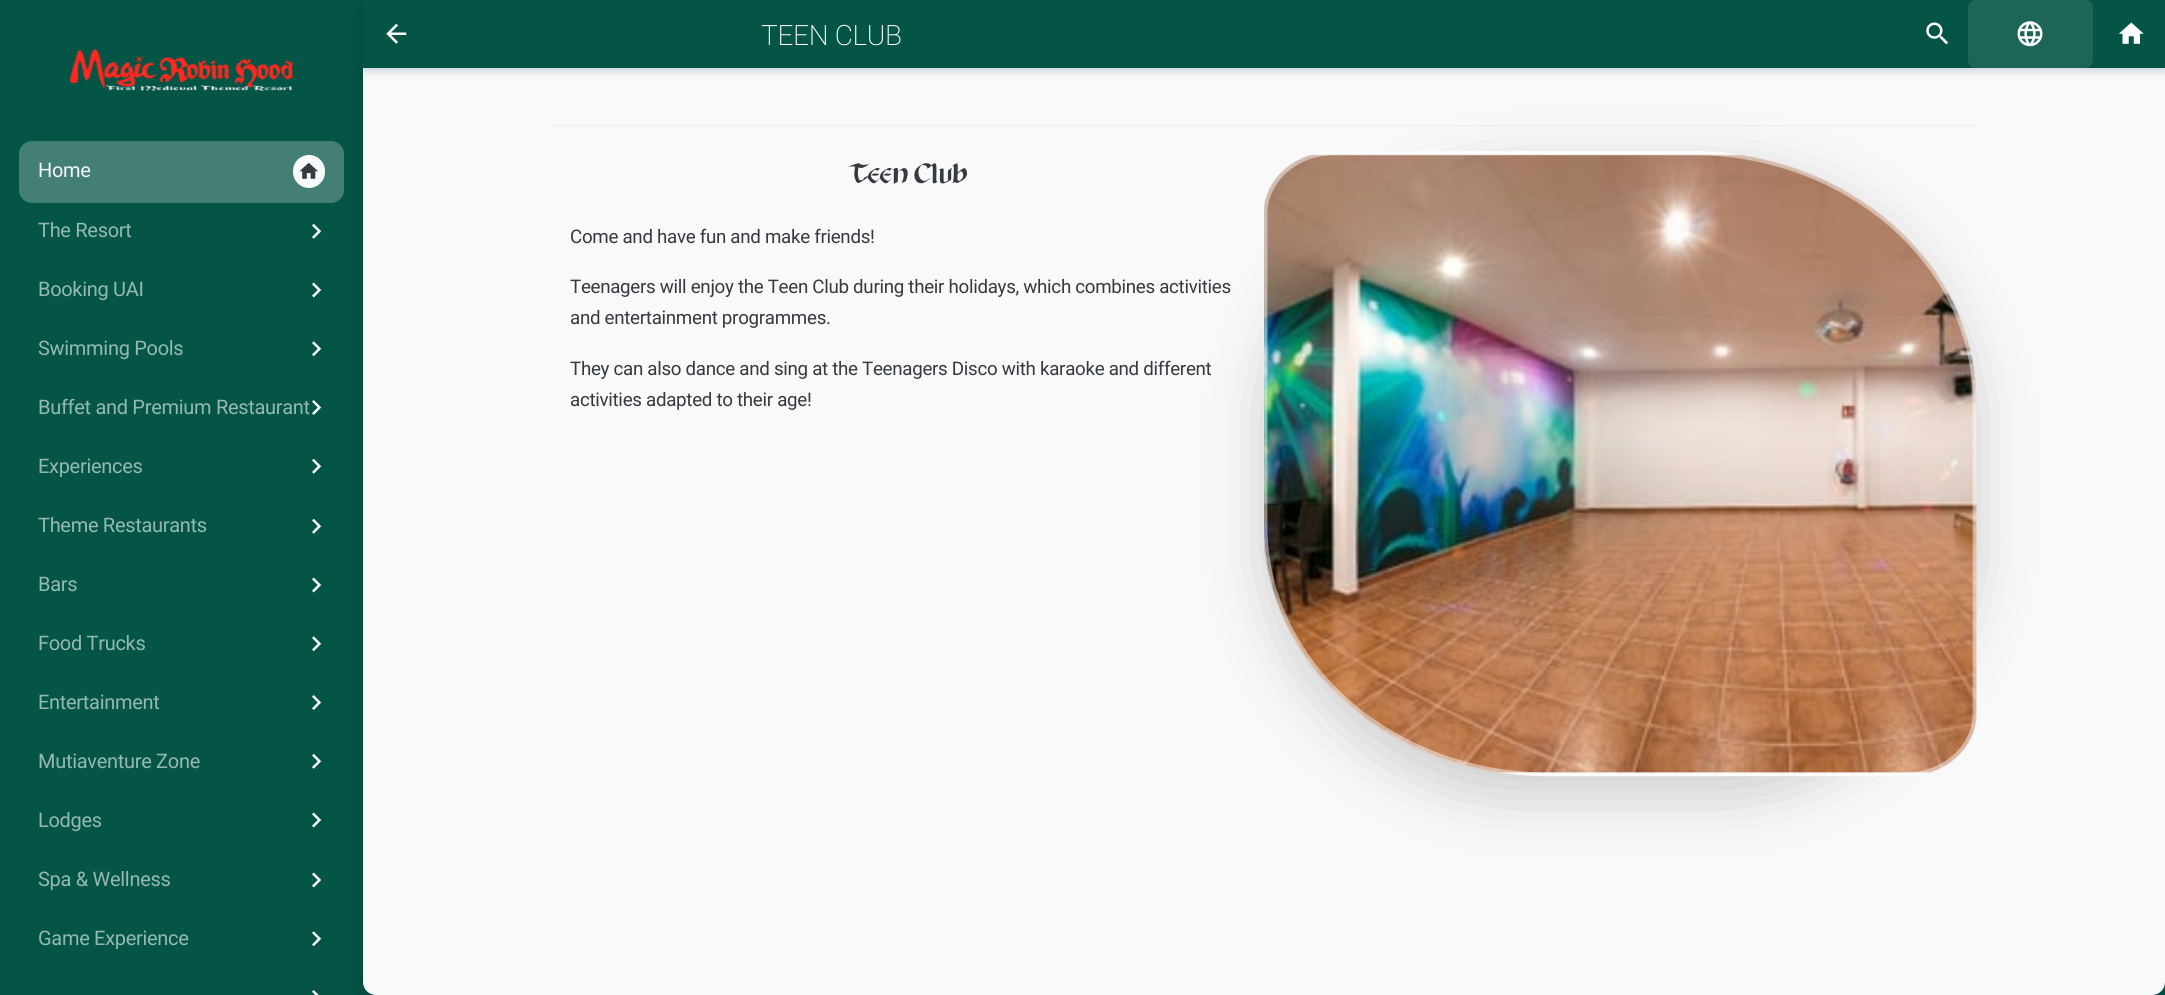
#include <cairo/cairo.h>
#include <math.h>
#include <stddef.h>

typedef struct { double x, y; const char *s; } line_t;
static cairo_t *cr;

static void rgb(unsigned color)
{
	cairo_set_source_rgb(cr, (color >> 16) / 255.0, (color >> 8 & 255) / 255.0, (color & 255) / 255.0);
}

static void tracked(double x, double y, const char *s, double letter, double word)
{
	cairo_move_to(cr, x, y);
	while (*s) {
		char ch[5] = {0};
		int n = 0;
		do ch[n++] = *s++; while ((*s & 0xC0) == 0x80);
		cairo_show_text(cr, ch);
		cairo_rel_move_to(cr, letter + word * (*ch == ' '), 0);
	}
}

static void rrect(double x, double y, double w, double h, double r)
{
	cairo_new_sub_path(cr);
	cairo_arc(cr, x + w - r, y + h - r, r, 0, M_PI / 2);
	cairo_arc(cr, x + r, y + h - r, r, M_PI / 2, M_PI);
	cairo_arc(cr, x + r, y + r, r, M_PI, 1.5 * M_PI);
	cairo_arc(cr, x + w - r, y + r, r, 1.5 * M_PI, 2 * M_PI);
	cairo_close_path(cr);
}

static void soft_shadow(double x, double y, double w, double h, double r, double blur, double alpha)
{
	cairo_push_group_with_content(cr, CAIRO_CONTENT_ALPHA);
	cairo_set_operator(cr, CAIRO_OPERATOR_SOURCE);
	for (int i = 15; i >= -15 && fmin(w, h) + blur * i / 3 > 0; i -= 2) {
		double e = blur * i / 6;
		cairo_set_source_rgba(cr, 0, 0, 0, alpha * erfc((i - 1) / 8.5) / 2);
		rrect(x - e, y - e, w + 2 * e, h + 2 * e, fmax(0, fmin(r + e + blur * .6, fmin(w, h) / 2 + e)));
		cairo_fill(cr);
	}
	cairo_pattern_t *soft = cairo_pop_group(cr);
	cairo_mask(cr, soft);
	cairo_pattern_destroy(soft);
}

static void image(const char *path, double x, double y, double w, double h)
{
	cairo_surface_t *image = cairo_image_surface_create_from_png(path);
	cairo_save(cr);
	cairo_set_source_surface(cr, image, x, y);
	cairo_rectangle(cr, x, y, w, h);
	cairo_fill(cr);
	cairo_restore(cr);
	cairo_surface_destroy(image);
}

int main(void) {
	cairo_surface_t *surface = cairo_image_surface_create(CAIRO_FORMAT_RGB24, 2165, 995);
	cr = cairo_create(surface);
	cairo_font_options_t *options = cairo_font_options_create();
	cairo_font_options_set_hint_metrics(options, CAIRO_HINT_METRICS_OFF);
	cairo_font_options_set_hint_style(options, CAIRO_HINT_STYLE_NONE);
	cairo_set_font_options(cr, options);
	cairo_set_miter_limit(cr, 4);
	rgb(0x045546);
	cairo_paint(cr);
	image("img/1.png", 69, 49, 224, 42);
	rgb(0x000000);
	soft_shadow(363, 6, 1802, 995, 13, 9.5, 0.2);
	rgb(0x437f74);
	rrect(19, 141, 325, 62, 13);
	cairo_fill(cr);
	rgb(0xf8f9fa);
	rrect(293, 155, 32, 33, 16);
	cairo_fill(cr);
	image("img/2.png", 299, 162, 19, 17);
	image("img/3.png", 312, 223, 10, 16);
	image("img/4.png", 312, 282, 10, 16);
	image("img/5.png", 312, 341, 10, 16);
	image("img/6.png", 312, 400, 10, 15);
	image("img/3.png", 312, 458, 10, 16);
	image("img/3.png", 312, 518, 10, 16);
	image("img/4.png", 312, 577, 10, 16);
	image("img/5.png", 312, 636, 10, 16);
	image("img/6.png", 312, 695, 10, 15);
	image("img/3.png", 312, 753, 10, 16);
	image("img/4.png", 312, 812, 10, 16);
	image("img/4.png", 312, 872, 10, 16);
	image("img/5.png", 312, 931, 10, 16);
	image("img/7.png", 312, 990, 7, 5);
	rgb(0xf9f9f9);
	rrect(363, 0, 1802, 995, 13);
	cairo_fill(cr);
	rgb(0x003167);
	soft_shadow(363, 4, 1802, 67, 0, 4.5, 0.2);
	rgb(0x045546);
	cairo_rectangle(cr, 363, 0, 1802, 68);
	cairo_fill(cr);
	image("img/8.png", 386, 23, 21, 21);
	image("img/9.png", 1926, 22, 22, 23);
	rgb(0x1c6557);
	rrect(1968, 0, 125, 68, 8);
	cairo_fill(cr);
	image("img/10.png", 2017, 21, 26, 26);
	image("img/11.png", 2119, 22, 25, 22);
	rgb(0xeeeeee);
	cairo_rectangle(cr, 551, 125, 1425, 1);
	cairo_fill(cr);
	cairo_save(cr);
	cairo_set_fill_rule(cr, CAIRO_FILL_RULE_EVEN_ODD);
	cairo_new_path(cr);
	cairo_move_to(cr, 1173, 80);
	cairo_line_to(cr, 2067, 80);
	cairo_line_to(cr, 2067, 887);
	cairo_line_to(cr, 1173, 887);
	cairo_close_path(cr);
	cairo_move_to(cr, 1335, 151);
	cairo_line_to(cr, 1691, 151);
	cairo_curve_to(cr, 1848.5, 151, 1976, 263, 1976, 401);
	cairo_line_to(cr, 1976, 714);
	cairo_curve_to(cr, 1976, 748.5, 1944.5, 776, 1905, 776);
	cairo_line_to(cr, 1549, 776);
	cairo_curve_to(cr, 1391.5, 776, 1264, 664.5, 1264, 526);
	cairo_line_to(cr, 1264, 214);
	cairo_curve_to(cr, 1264, 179, 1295.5, 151, 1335, 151);
	cairo_close_path(cr);
	cairo_clip(cr);
	rgb(0x000000);
	soft_shadow(1264, 171, 712, 625, 250, 30, 0.18);
	cairo_restore(cr);
	image("img/12.png", 1264, 154, 713, 620);
	cairo_new_path(cr);
	cairo_move_to(cr, 1335, 153);
	cairo_line_to(cr, 1691, 153);
	cairo_curve_to(cr, 1847.5, 153, 1974.5, 264, 1974.5, 401);
	cairo_line_to(cr, 1974.5, 714);
	cairo_curve_to(cr, 1974.5, 747, 1943.5, 774.5, 1905, 774.5);
	cairo_line_to(cr, 1549, 774.5);
	cairo_curve_to(cr, 1392.5, 774.5, 1265.5, 663.5, 1265.5, 526);
	cairo_line_to(cr, 1265.5, 214);
	cairo_curve_to(cr, 1265.5, 180.5, 1296.5, 153, 1335, 153);
	cairo_close_path(cr);
	cairo_set_source_rgba(cr, 1, 1, 1, 0.47);
	cairo_set_line_width(cr, 3.8);
	cairo_stroke(cr);
	cairo_select_font_face(cr, "Roboto", CAIRO_FONT_SLANT_NORMAL, CAIRO_FONT_WEIGHT_NORMAL);
	cairo_set_font_size(cr, 20);
	rgb(0xf8f9fa);
	tracked(38, 177, "Home", -0.3, 0);
	rgb(0x93b9b2);
	{
		static const line_t items[] = {
			{38, 237, "The Resort"},
			{38, 296, "Booking UAI"},
			{38, 355, "Swimming Pools"},
			{38, 414, "Buffet and Premium Restaurant"},
			{38, 473, "Experiences"},
			{38, 532, "Theme Restaurants"},
			{38, 591, "Bars"},
			{38, 650, "Food Trucks"},
			{38, 709, "Entertainment"},
			{38, 768, "Mutiaventure Zone"},
			{38, 827, "Lodges"},
			{38, 886, "Spa & Wellness"},
			{38, 945, "Game Experience"},
		};
		for (size_t i = 0; i < sizeof items / sizeof *items; i++) {
			tracked(items[i].x, items[i].y, items[i].s, -0.3, 0);
		}
	}
	cairo_select_font_face(cr, "Roboto ExtraLight", CAIRO_FONT_SLANT_NORMAL, CAIRO_FONT_WEIGHT_NORMAL);
	cairo_set_font_size(cr, 28);
	rgb(0xffffff);
	tracked(761, 45, "TEEN CLUB", -0.3, 0);
	cairo_select_font_face(cr, "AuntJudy", CAIRO_FONT_SLANT_NORMAL, CAIRO_FONT_WEIGHT_NORMAL);
	cairo_set_font_size(cr, 25);
	rgb(0x343a40);
	tracked(848, 183, "Teen Club", -0.3, 0);
	cairo_select_font_face(cr, "Roboto", CAIRO_FONT_SLANT_NORMAL, CAIRO_FONT_WEIGHT_NORMAL);
	cairo_set_font_size(cr, 18.75);
	{
		static const line_t items[] = {
			{570, 243, "Come and have fun and make friends!"},
			{570, 293, "Teenagers will enjoy the Teen Club during their holidays, which combines activities"},
			{570, 324, "and entertainment programmes."},
			{570, 375, "They can also dance and sing at the Teenagers Disco with karaoke and different"},
			{570, 406, "activities adapted to their age!"},
		};
		for (size_t i = 0; i < sizeof items / sizeof *items; i++) {
			tracked(items[i].x, items[i].y, items[i].s, -0.3, 0);
		}
	}
	cairo_surface_write_to_png(surface, "page.png");
	cairo_font_options_destroy(options);
	cairo_destroy(cr);
	cairo_surface_destroy(surface);
	return 0;
}
